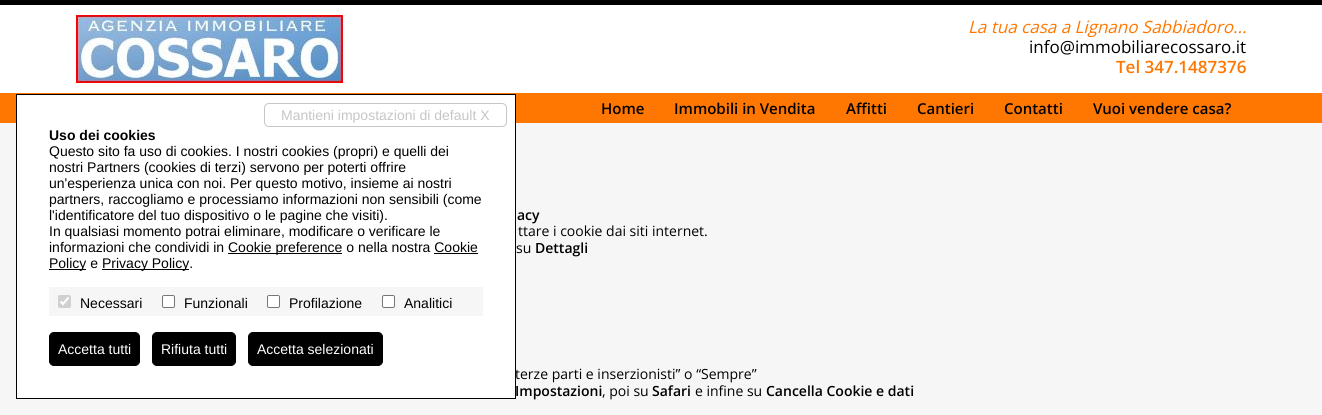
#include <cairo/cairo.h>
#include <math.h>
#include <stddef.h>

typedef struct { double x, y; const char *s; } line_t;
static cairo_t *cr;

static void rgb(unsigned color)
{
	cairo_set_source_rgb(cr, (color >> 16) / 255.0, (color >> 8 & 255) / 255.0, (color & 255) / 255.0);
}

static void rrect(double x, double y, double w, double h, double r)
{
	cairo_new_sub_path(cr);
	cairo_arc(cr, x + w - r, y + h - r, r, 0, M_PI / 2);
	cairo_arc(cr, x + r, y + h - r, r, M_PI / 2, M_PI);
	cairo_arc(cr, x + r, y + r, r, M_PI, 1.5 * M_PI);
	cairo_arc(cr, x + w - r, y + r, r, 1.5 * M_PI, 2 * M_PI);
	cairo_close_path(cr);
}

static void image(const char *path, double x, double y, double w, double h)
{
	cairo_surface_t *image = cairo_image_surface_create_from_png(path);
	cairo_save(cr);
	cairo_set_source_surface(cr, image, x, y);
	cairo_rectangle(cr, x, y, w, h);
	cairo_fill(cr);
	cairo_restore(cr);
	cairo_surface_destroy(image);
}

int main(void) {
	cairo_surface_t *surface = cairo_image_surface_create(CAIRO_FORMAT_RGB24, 1322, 415);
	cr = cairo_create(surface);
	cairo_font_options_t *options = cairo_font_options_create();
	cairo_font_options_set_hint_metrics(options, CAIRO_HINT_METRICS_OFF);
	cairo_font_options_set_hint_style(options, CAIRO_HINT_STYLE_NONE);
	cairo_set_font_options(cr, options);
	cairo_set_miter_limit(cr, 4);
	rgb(0xf6f6f6);
	cairo_paint(cr);
	rgb(0xffffff);
	cairo_rectangle(cr, 0, 5, 1322, 88);
	cairo_fill(cr);
	rgb(0x000000);
	cairo_rectangle(cr, 0, 0, 1322, 5);
	cairo_fill(cr);
	image("img/1.png", 76, 15, 267, 68);
	rgb(0xff7700);
	cairo_rectangle(cr, 0, 93, 1322, 30);
	cairo_fill(cr);
	cairo_select_font_face(cr, "Open Sans", CAIRO_FONT_SLANT_ITALIC, CAIRO_FONT_WEIGHT_NORMAL);
	cairo_set_font_size(cr, 17);
	cairo_move_to(cr, 968, 33);
	cairo_show_text(cr, "La tua casa a Lignano Sabbiadoro...");
	cairo_select_font_face(cr, "Open Sans", CAIRO_FONT_SLANT_NORMAL, CAIRO_FONT_WEIGHT_NORMAL);
	rgb(0x000000);
	cairo_move_to(cr, 1029, 53);
	cairo_show_text(cr, "info@immobiliarecossaro.it");
	cairo_select_font_face(cr, "Open Sans SemiBold", CAIRO_FONT_SLANT_NORMAL, CAIRO_FONT_WEIGHT_NORMAL);
	rgb(0xff7700);
	cairo_move_to(cr, 1116, 73);
	cairo_show_text(cr, "Tel 347.1487376");
	cairo_set_font_size(cr, 15);
	rgb(0x000000);
	{
		static const line_t items[] = {
			{601, 114, "Home"},
			{674, 114, "Immobili in Vendita"},
			{846, 114, "Affitti"},
			{917, 114, "Cantieri"},
			{1004, 114, "Contatti"},
			{1093, 114, "Vuoi vendere casa?"},
		};
		for (size_t i = 0; i < sizeof items / sizeof *items; i++) {
			cairo_move_to(cr, items[i].x, items[i].y);
			cairo_show_text(cr, items[i].s);
		}
	}
	cairo_set_font_size(cr, 14);
	cairo_move_to(cr, 517, 220);
	cairo_show_text(cr, "acy");
	cairo_select_font_face(cr, "Open Sans", CAIRO_FONT_SLANT_NORMAL, CAIRO_FONT_WEIGHT_NORMAL);
	cairo_move_to(cr, 518, 236);
	cairo_show_text(cr, "ttare i cookie dai siti internet.");
	cairo_move_to(cr, 516, 253);
	cairo_show_text(cr, "su");
	cairo_select_font_face(cr, "Open Sans SemiBold", CAIRO_FONT_SLANT_NORMAL, CAIRO_FONT_WEIGHT_NORMAL);
	cairo_move_to(cr, 535, 253);
	cairo_show_text(cr, "Dettagli");
	cairo_select_font_face(cr, "Open Sans", CAIRO_FONT_SLANT_NORMAL, CAIRO_FONT_WEIGHT_NORMAL);
	cairo_move_to(cr, 515, 379);
	cairo_show_text(cr, "terze parti e inserzionisti” o “Sempre”");
	cairo_select_font_face(cr, "Open Sans SemiBold", CAIRO_FONT_SLANT_NORMAL, CAIRO_FONT_WEIGHT_NORMAL);
	cairo_move_to(cr, 515, 396);
	cairo_show_text(cr, "Impostazioni");
	rgb(0xffffff);
	cairo_rectangle(cr, 16.5, 94.5, 499, 304);
	cairo_fill_preserve(cr);
	rgb(0x000000);
	cairo_set_line_width(cr, 1);
	cairo_stroke(cr);
	rrect(264.5, 103.5, 242, 23, 4.5);
	rgb(0xc6c6c6);
	cairo_stroke(cr);
	cairo_select_font_face(cr, "Liberation Sans", CAIRO_FONT_SLANT_NORMAL, CAIRO_FONT_WEIGHT_NORMAL);
	cairo_move_to(cr, 281, 120);
	cairo_show_text(cr, "Mantieni impostazioni di default X");
	rgb(0x000000);
	rrect(248.5, 332.5, 134, 33, 4.5);
	cairo_fill_preserve(cr);
	cairo_stroke(cr);
	rgb(0xffffff);
	cairo_move_to(cr, 257, 354);
	cairo_show_text(cr, "Accetta selezionati");
	rgb(0x000000);
	rrect(152.5, 332.5, 83, 33, 4.5);
	cairo_fill_preserve(cr);
	cairo_stroke(cr);
	rgb(0xffffff);
	cairo_move_to(cr, 161, 354);
	cairo_show_text(cr, "Rifiuta tutti");
	rgb(0x000000);
	rrect(49.5, 332.5, 90, 33, 4.5);
	cairo_fill_preserve(cr);
	cairo_stroke(cr);
	rgb(0xffffff);
	cairo_move_to(cr, 58, 354);
	cairo_show_text(cr, "Accetta tutti");
	rgb(0xf6f6f6);
	cairo_rectangle(cr, 49, 287, 434, 29);
	cairo_fill(cr);
	rgb(0x000000);
	cairo_move_to(cr, 404, 308);
	cairo_show_text(cr, "Analitici");
	rgb(0xffffff);
	rrect(382.5, 295.5, 12, 12, 1.5);
	cairo_fill_preserve(cr);
	rgb(0x767676);
	cairo_stroke(cr);
	rgb(0x000000);
	cairo_move_to(cr, 289, 308);
	cairo_show_text(cr, "Profilazione");
	rgb(0xffffff);
	rrect(267.5, 295.5, 12, 12, 1.5);
	cairo_fill_preserve(cr);
	rgb(0x767676);
	cairo_stroke(cr);
	rgb(0x000000);
	cairo_move_to(cr, 184, 308);
	cairo_show_text(cr, "Funzionali");
	rgb(0xffffff);
	rrect(162.5, 295.5, 12, 12, 1.5);
	cairo_fill_preserve(cr);
	rgb(0x767676);
	cairo_stroke(cr);
	rgb(0x000000);
	cairo_move_to(cr, 80, 308);
	cairo_show_text(cr, "Necessari");
	rgb(0xd0d0d0);
	rrect(58, 295, 13, 13, 2);
	cairo_fill(cr);
	cairo_new_path(cr);
	cairo_move_to(cr, 60.5, 301.5);
	cairo_line_to(cr, 63, 304);
	cairo_line_to(cr, 68.5, 297.5);
	rgb(0xffffff);
	cairo_set_line_width(cr, 2.1);
	cairo_stroke(cr);
	rgb(0x000000);
	cairo_rectangle(cr, 102, 269, 87, 1);
	cairo_fill(cr);
	cairo_move_to(cr, 102, 268);
	cairo_show_text(cr, "Privacy Policy.");
	cairo_rectangle(cr, 49, 269, 37, 1);
	cairo_fill(cr);
	cairo_move_to(cr, 49, 268);
	cairo_show_text(cr, "Policy e");
	cairo_rectangle(cr, 434, 253, 44, 1);
	cairo_fill(cr);
	cairo_rectangle(cr, 228, 253, 114, 1);
	cairo_fill(cr);
	{
		static const line_t items[] = {
			{228, 252, "Cookie preference o nella nostra Cookie"},
			{49, 252, "informazioni che condividi in"},
			{49, 236, "In qualsiasi momento potrai eliminare, modificare o verificare le"},
			{49, 220, "l'identificatore del tuo dispositivo o le pagine che visiti)."},
			{49, 204, "partners, raccogliamo e processiamo informazioni non sensibili (come"},
			{49, 188, "un'esperienza unica con noi. Per questo motivo, insieme ai nostri"},
			{49, 172, "nostri Partners (cookies di terzi) servono per poterti offrire"},
			{49, 156, "Questo sito fa uso di cookies. I nostri cookies (propri) e quelli dei"},
		};
		for (size_t i = 0; i < sizeof items / sizeof *items; i++) {
			cairo_move_to(cr, items[i].x, items[i].y);
			cairo_show_text(cr, items[i].s);
		}
	}
	cairo_select_font_face(cr, "Liberation Sans", CAIRO_FONT_SLANT_NORMAL, CAIRO_FONT_WEIGHT_BOLD);
	cairo_move_to(cr, 49, 140);
	cairo_show_text(cr, "Uso dei cookies");
	cairo_select_font_face(cr, "Open Sans", CAIRO_FONT_SLANT_NORMAL, CAIRO_FONT_WEIGHT_NORMAL);
	cairo_move_to(cr, 602, 396);
	cairo_show_text(cr, ", poi su");
	cairo_select_font_face(cr, "Open Sans SemiBold", CAIRO_FONT_SLANT_NORMAL, CAIRO_FONT_WEIGHT_NORMAL);
	cairo_move_to(cr, 652, 396);
	cairo_show_text(cr, "Safari");
	cairo_select_font_face(cr, "Open Sans", CAIRO_FONT_SLANT_NORMAL, CAIRO_FONT_WEIGHT_NORMAL);
	cairo_move_to(cr, 695, 396);
	cairo_show_text(cr, "e infine su");
	cairo_select_font_face(cr, "Open Sans SemiBold", CAIRO_FONT_SLANT_NORMAL, CAIRO_FONT_WEIGHT_NORMAL);
	cairo_move_to(cr, 766, 396);
	cairo_show_text(cr, "Cancella Cookie e dati");
	cairo_surface_write_to_png(surface, "page.png");
	cairo_font_options_destroy(options);
	cairo_destroy(cr);
	cairo_surface_destroy(surface);
	return 0;
}
